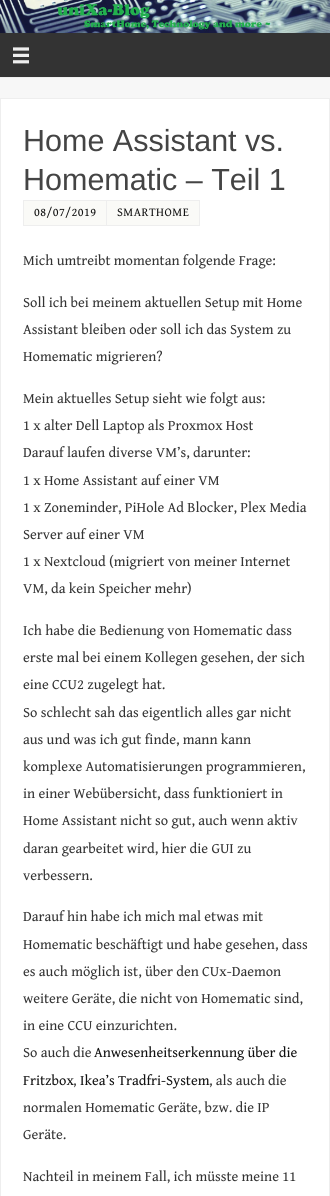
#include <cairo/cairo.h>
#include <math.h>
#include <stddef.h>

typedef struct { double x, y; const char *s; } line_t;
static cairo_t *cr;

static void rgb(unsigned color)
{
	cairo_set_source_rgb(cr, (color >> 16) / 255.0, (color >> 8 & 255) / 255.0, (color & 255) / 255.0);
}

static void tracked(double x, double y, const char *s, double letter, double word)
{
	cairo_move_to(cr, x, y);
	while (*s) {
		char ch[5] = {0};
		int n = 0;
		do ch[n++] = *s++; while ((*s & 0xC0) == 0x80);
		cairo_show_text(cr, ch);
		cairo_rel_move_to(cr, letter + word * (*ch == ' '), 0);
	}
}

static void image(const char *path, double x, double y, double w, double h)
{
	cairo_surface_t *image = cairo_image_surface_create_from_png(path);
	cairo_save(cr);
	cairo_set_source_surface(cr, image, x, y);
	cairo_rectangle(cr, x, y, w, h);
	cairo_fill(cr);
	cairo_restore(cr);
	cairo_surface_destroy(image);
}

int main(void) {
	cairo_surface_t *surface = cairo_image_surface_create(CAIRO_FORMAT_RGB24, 330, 1196);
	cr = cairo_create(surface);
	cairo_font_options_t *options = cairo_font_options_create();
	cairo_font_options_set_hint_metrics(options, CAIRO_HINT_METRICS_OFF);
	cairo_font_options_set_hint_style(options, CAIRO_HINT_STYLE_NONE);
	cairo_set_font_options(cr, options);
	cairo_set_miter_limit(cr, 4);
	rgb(0xf7f7f7);
	cairo_paint(cr);
	rgb(0xeeeeee);
	cairo_rectangle(cr, 0, 77, 330, 1);
	cairo_fill(cr);
	image("img/1.png", 0, 0, 330, 33);
	rgb(0x333333);
	cairo_rectangle(cr, 0, 33, 330, 44);
	cairo_fill(cr);
	image("img/2.png", 13, 47, 16, 17);
	rgb(0xffffff);
	cairo_rectangle(cr, 0.5, 98.5, 329, 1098);
	cairo_fill_preserve(cr);
	rgb(0xeeeeee);
	cairo_set_line_width(cr, 1);
	cairo_stroke(cr);
	rgb(0xfafaf7);
	cairo_rectangle(cr, 23.5, 200.5, 83, 25);
	cairo_fill_preserve(cr);
	rgb(0xeeeeee);
	cairo_stroke(cr);
	rgb(0xfafaf7);
	cairo_rectangle(cr, 106.5, 200.5, 93, 25);
	cairo_fill_preserve(cr);
	rgb(0xeeeeee);
	cairo_stroke(cr);
	cairo_select_font_face(cr, "Liberation Sans", CAIRO_FONT_SLANT_NORMAL, CAIRO_FONT_WEIGHT_NORMAL);
	cairo_set_font_size(cr, 30.5);
	rgb(0x444444);
	cairo_move_to(cr, 23, 151);
	cairo_show_text(cr, "Home Assistant vs.");
	cairo_move_to(cr, 23, 190);
	cairo_show_text(cr, "Homematic – Teil 1");
	cairo_select_font_face(cr, "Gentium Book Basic", CAIRO_FONT_SLANT_NORMAL, CAIRO_FONT_WEIGHT_NORMAL);
	cairo_set_font_size(cr, 12);
	rgb(0x111111);
	tracked(34, 216, "08/07/2019", 0.5, 0);
	tracked(117, 216, "SMARTHOME", 0.5, 0);
	cairo_set_font_size(cr, 14.4);
	rgb(0x333333);
	{
		static const line_t items[] = {
			{23, 265, "Mich umtreibt momentan folgende Frage:"},
			{23, 307, "Soll ich bei meinem aktuellen Setup mit Home"},
			{23, 334, "Assistant bleiben oder soll ich das System zu"},
			{23, 361, "Homematic migrieren?"},
			{23, 403, "Mein aktuelles Setup sieht wie folgt aus:"},
			{23, 430, "1 x alter Dell Laptop als Proxmox Host"},
			{23, 457, "Darauf laufen diverse VM’s, darunter:"},
			{23, 485, "1 x Home Assistant auf einer VM"},
			{23, 512, "1 x Zoneminder, PiHole Ad Blocker, Plex Media"},
			{23, 539, "Server auf einer VM"},
			{23, 566, "1 x Nextcloud (migriert von meiner Internet"},
			{23, 593, "VM, da kein Speicher mehr)"},
			{23, 635, "Ich habe die Bedienung von Homematic dass"},
			{23, 662, "erste mal bei einem Kollegen gesehen, der sich"},
			{23, 689, "eine CCU2 zugelegt hat."},
			{23, 717, "So schlecht sah das eigentlich alles gar nicht"},
			{23, 744, "aus und was ich gut finde, mann kann"},
			{23, 771, "komplexe Automatisierungen programmieren,"},
			{23, 798, "in einer Webübersicht, dass funktioniert in"},
			{23, 825, "Home Assistant nicht so gut, auch wenn aktiv"},
			{23, 853, "daran gearbeitet wird, hier die GUI zu"},
			{23, 880, "verbessern."},
			{23, 921, "Darauf hin habe ich mich mal etwas mit"},
			{23, 949, "Homematic beschäftigt und habe gesehen, dass"},
			{23, 976, "es auch möglich ist, über den CUx-Daemon"},
			{23, 1003, "weitere Geräte, die nicht von Homematic sind,"},
			{23, 1030, "in eine CCU einzurichten."},
			{23, 1057, "So auch die"},
		};
		for (size_t i = 0; i < sizeof items / sizeof *items; i++) {
			cairo_move_to(cr, items[i].x, items[i].y);
			cairo_show_text(cr, items[i].s);
		}
	}
	rgb(0x111111);
	cairo_move_to(cr, 94, 1057);
	cairo_show_text(cr, "Anwesenheitserkennung über die");
	cairo_move_to(cr, 23, 1085);
	cairo_show_text(cr, "Fritzbox");
	rgb(0x333333);
	cairo_move_to(cr, 73, 1085);
	cairo_show_text(cr, ",");
	rgb(0x111111);
	cairo_move_to(cr, 80, 1085);
	cairo_show_text(cr, "Ikea’s Tradfri-System");
	rgb(0x333333);
	{
		static const line_t items[] = {
			{209, 1085, ", als auch die"},
			{23, 1112, "normalen Homematic Geräte, bzw. die IP"},
			{23, 1139, "Geräte."},
			{23, 1181, "Nachteil in meinem Fall, ich müsste meine 11"},
		};
		for (size_t i = 0; i < sizeof items / sizeof *items; i++) {
			cairo_move_to(cr, items[i].x, items[i].y);
			cairo_show_text(cr, items[i].s);
		}
	}
	cairo_surface_write_to_png(surface, "page.png");
	cairo_font_options_destroy(options);
	cairo_destroy(cr);
	cairo_surface_destroy(surface);
	return 0;
}
